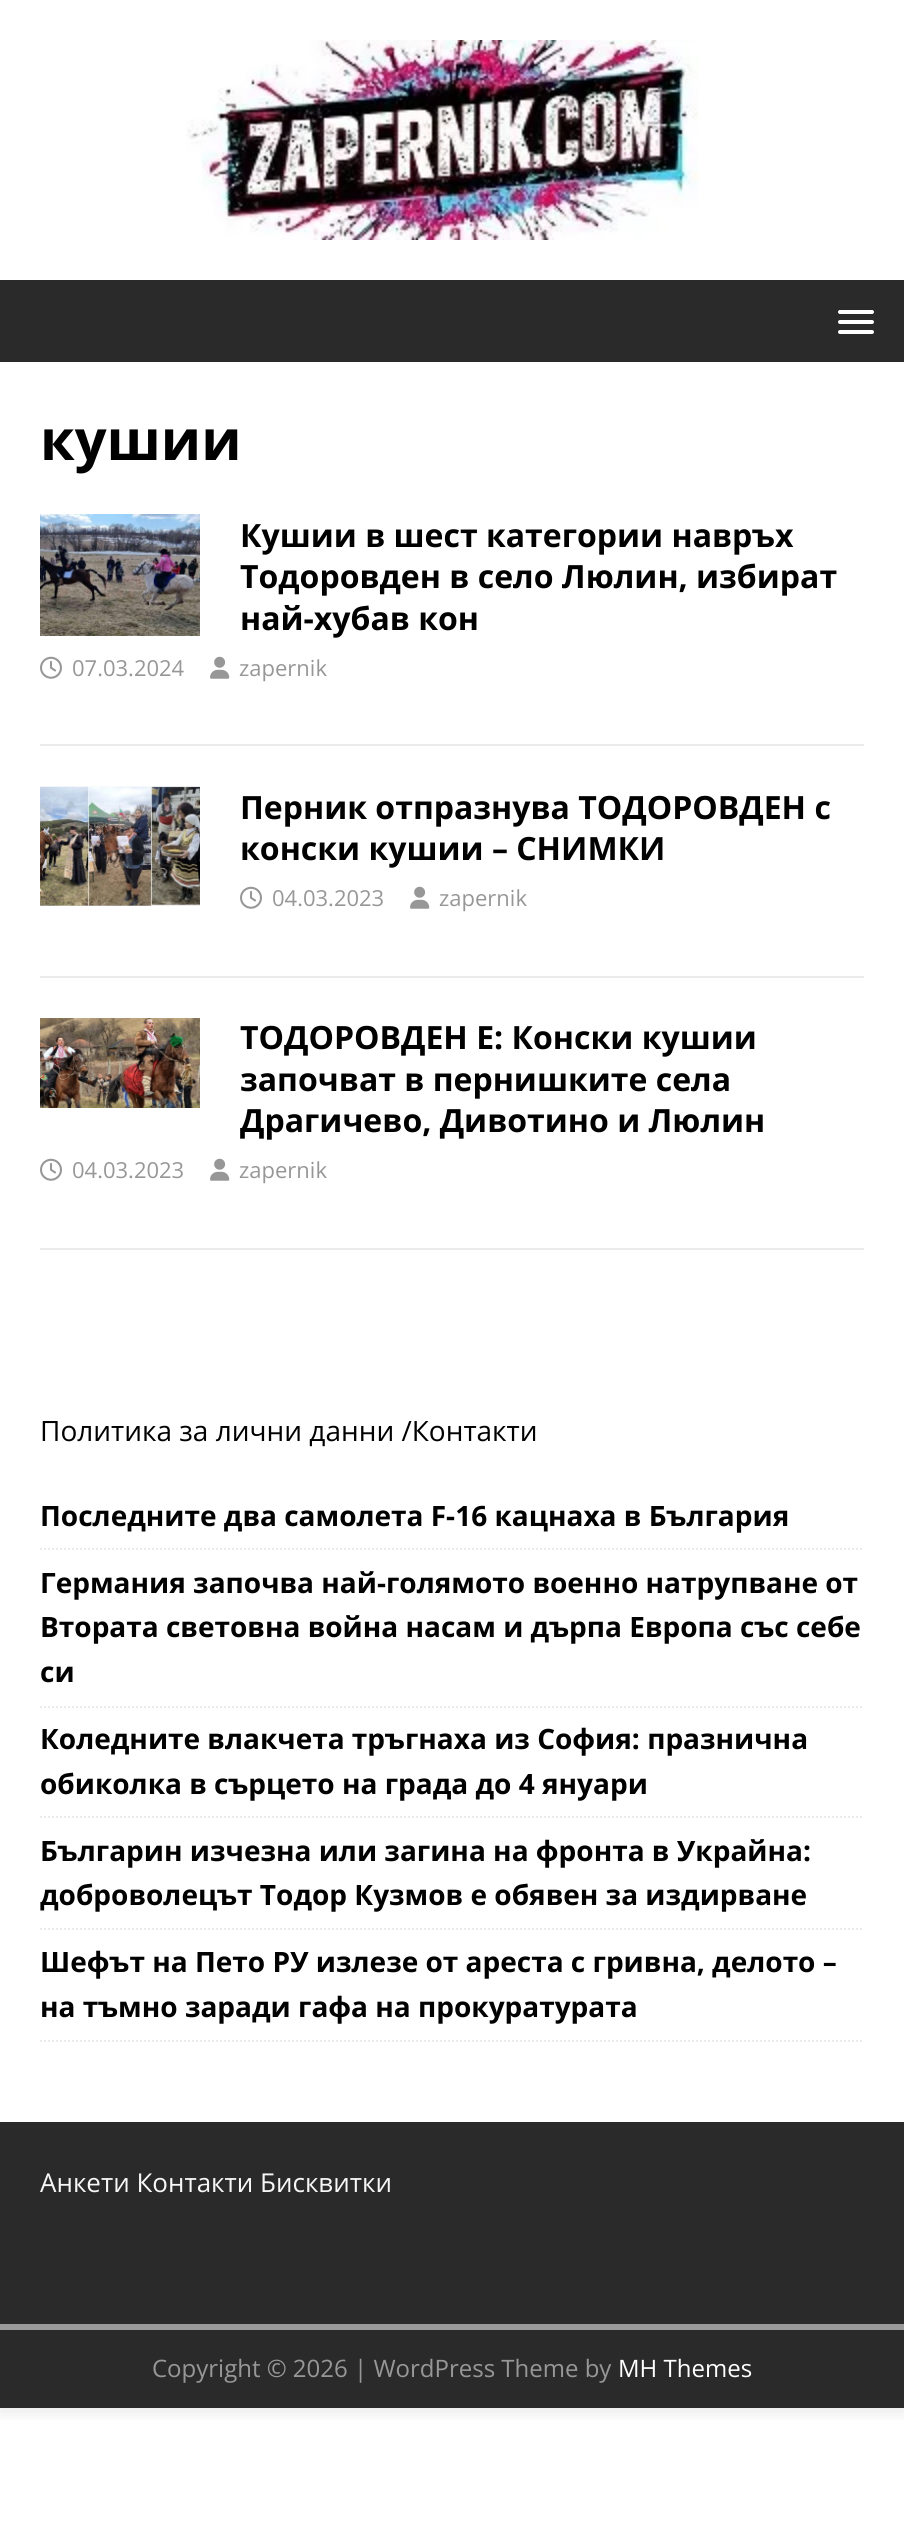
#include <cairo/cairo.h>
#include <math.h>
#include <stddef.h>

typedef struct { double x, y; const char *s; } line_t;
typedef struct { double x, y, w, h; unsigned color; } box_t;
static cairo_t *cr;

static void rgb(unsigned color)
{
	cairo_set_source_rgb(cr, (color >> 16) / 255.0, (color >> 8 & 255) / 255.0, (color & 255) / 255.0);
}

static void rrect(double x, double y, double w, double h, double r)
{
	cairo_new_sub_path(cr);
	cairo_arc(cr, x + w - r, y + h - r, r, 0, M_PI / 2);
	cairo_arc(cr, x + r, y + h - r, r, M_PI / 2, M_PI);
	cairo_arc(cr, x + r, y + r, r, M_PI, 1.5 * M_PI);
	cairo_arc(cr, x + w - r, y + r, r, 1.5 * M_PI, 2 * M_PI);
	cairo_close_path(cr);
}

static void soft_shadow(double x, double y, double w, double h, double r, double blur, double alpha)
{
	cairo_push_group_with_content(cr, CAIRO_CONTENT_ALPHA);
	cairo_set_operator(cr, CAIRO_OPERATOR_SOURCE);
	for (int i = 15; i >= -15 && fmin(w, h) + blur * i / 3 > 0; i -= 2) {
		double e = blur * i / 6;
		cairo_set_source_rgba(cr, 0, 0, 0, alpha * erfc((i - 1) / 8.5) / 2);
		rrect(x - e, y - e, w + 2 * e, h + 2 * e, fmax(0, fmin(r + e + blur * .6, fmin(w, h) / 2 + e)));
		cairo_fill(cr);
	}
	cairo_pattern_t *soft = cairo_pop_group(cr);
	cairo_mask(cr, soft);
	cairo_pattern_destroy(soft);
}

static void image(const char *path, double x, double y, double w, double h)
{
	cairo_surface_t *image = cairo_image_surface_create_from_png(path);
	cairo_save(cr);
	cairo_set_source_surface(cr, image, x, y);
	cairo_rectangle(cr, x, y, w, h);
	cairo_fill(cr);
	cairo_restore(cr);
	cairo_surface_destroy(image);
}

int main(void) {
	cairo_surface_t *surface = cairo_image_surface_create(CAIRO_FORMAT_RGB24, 904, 2527);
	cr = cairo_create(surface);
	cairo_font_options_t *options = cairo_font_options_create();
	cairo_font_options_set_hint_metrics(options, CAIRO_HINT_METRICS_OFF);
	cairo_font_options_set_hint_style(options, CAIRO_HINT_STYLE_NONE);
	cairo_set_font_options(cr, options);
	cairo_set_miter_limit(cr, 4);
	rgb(0xffffff);
	cairo_paint(cr);
	cairo_save(cr);
	cairo_rectangle(cr, 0, 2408, 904, 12);
	cairo_clip(cr);
	rgb(0x323232);
	soft_shadow(0, 0, 904, 2408, 0, 10, 0.17);
	cairo_restore(cr);
	image("img/1.png", 186, 40, 513, 200);
	rgb(0x2a2a2a);
	cairo_rectangle(cr, 0, 280, 904, 82);
	cairo_fill(cr);
	rgb(0xffffff);
	rrect(838, 310, 36, 4, 2);
	cairo_fill(cr);
	rrect(838, 320, 36, 4, 2);
	cairo_fill(cr);
	rrect(838, 330, 36, 4, 2);
	cairo_fill(cr);
	rgb(0xebebeb);
	cairo_rectangle(cr, 40, 744, 824, 2);
	cairo_fill(cr);
	image("img/2.png", 40, 514, 160, 122);
	image("img/3.png", 40, 656, 22, 23);
	image("img/4.png", 210, 656, 20, 23);
	cairo_rectangle(cr, 40, 976, 824, 2);
	cairo_fill(cr);
	image("img/5.png", 40, 786, 160, 120);
	image("img/3.png", 240, 886, 22, 23);
	image("img/4.png", 410, 886, 20, 23);
	cairo_rectangle(cr, 40, 1248, 824, 2);
	cairo_fill(cr);
	image("img/6.png", 40, 1018, 160, 90);
	image("img/3.png", 40, 1158, 22, 23);
	image("img/4.png", 210, 1158, 20, 23);
	cairo_new_path(cr);
	cairo_move_to(cr, 40, 1549);
	cairo_line_to(cr, 864, 1549);
	cairo_set_dash(cr, (double[]){2, 2}, 2, 0);
	cairo_stroke(cr);
	cairo_new_path(cr);
	cairo_move_to(cr, 40, 1707);
	cairo_line_to(cr, 864, 1707);
	cairo_stroke(cr);
	cairo_new_path(cr);
	cairo_move_to(cr, 40, 1817);
	cairo_line_to(cr, 864, 1817);
	cairo_stroke(cr);
	cairo_new_path(cr);
	cairo_move_to(cr, 40, 1929);
	cairo_line_to(cr, 864, 1929);
	cairo_stroke(cr);
	cairo_new_path(cr);
	cairo_move_to(cr, 40, 2041);
	cairo_line_to(cr, 864, 2041);
	cairo_stroke(cr);
	{
		static const box_t items[] = {
			{0, 2122, 904, 202, 0x2a2a2a},
			{0, 2330, 904, 78, 0x2a2a2a},
			{0, 2324, 904, 6, 0x999999},
		};
		for (size_t i = 0; i < sizeof items / sizeof *items; i++) {
			rgb(items[i].color);
			cairo_rectangle(cr, items[i].x, items[i].y, items[i].w, items[i].h);
			cairo_fill(cr);
		}
	}
	cairo_select_font_face(cr, "Open Sans", CAIRO_FONT_SLANT_NORMAL, CAIRO_FONT_WEIGHT_BOLD);
	cairo_set_font_size(cr, 56);
	rgb(0x000000);
	cairo_move_to(cr, 40, 460);
	cairo_show_text(cr, "кушии");
	cairo_set_font_size(cr, 32);
	{
		static const line_t items[] = {
			{240, 547, "Кушии в шест категории навръх"},
			{240, 588, "Тодоровден в село Люлин, избират"},
			{240, 630, "най-хубав кон"},
		};
		for (size_t i = 0; i < sizeof items / sizeof *items; i++) {
			cairo_move_to(cr, items[i].x, items[i].y);
			cairo_show_text(cr, items[i].s);
		}
	}
	cairo_select_font_face(cr, "Open Sans", CAIRO_FONT_SLANT_NORMAL, CAIRO_FONT_WEIGHT_NORMAL);
	cairo_set_font_size(cr, 22);
	rgb(0x979797);
	cairo_move_to(cr, 72, 676);
	cairo_show_text(cr, "07.03.2024");
	cairo_move_to(cr, 239, 676);
	cairo_show_text(cr, "zapernik");
	cairo_select_font_face(cr, "Open Sans", CAIRO_FONT_SLANT_NORMAL, CAIRO_FONT_WEIGHT_BOLD);
	cairo_set_font_size(cr, 32);
	rgb(0x000000);
	cairo_move_to(cr, 240, 819);
	cairo_show_text(cr, "Перник отпразнува ТОДОРОВДЕН с");
	cairo_move_to(cr, 240, 860);
	cairo_show_text(cr, "конски кушии – СНИМКИ");
	cairo_select_font_face(cr, "Open Sans", CAIRO_FONT_SLANT_NORMAL, CAIRO_FONT_WEIGHT_NORMAL);
	cairo_set_font_size(cr, 22);
	rgb(0x979797);
	cairo_move_to(cr, 272, 906);
	cairo_show_text(cr, "04.03.2023");
	cairo_move_to(cr, 439, 906);
	cairo_show_text(cr, "zapernik");
	cairo_select_font_face(cr, "Open Sans", CAIRO_FONT_SLANT_NORMAL, CAIRO_FONT_WEIGHT_BOLD);
	cairo_set_font_size(cr, 32);
	rgb(0x000000);
	{
		static const line_t items[] = {
			{240, 1049, "ТОДОРОВДЕН Е: Конски кушии"},
			{240, 1091, "започват в пернишките села"},
			{240, 1132, "Драгичево, Дивотино и Люлин"},
		};
		for (size_t i = 0; i < sizeof items / sizeof *items; i++) {
			cairo_move_to(cr, items[i].x, items[i].y);
			cairo_show_text(cr, items[i].s);
		}
	}
	cairo_select_font_face(cr, "Open Sans", CAIRO_FONT_SLANT_NORMAL, CAIRO_FONT_WEIGHT_NORMAL);
	cairo_set_font_size(cr, 22);
	rgb(0x979797);
	cairo_move_to(cr, 72, 1178);
	cairo_show_text(cr, "04.03.2023");
	cairo_move_to(cr, 239, 1178);
	cairo_show_text(cr, "zapernik");
	cairo_set_font_size(cr, 28);
	rgb(0x000000);
	cairo_move_to(cr, 40, 1441);
	cairo_show_text(cr, "Политика за лични данни /Контакти");
	cairo_select_font_face(cr, "Open Sans", CAIRO_FONT_SLANT_NORMAL, CAIRO_FONT_WEIGHT_BOLD);
	{
		static const line_t items[] = {
			{40, 1526, "Последните два самолета F-16 кацнаха в България"},
			{40, 1593, "Германия започва най-голямото военно натрупване от"},
			{40, 1637, "Втората световна война насам и дърпа Европа със себе"},
			{40, 1682, "си"},
			{40, 1749, "Коледните влакчета тръгнаха из София: празнична"},
			{40, 1794, "обиколка в сърцето на града до 4 януари"},
			{40, 1861, "Българин изчезна или загина на фронта в Украйна:"},
			{40, 1905, "доброволецът Тодор Кузмов е обявен за издирване"},
			{40, 1972, "Шефът на Пето РУ излезе от ареста с гривна, делото –"},
			{40, 2017, "на тъмно заради гафа на прокуратурата"},
		};
		for (size_t i = 0; i < sizeof items / sizeof *items; i++) {
			cairo_move_to(cr, items[i].x, items[i].y);
			cairo_show_text(cr, items[i].s);
		}
	}
	cairo_select_font_face(cr, "Open Sans", CAIRO_FONT_SLANT_NORMAL, CAIRO_FONT_WEIGHT_NORMAL);
	cairo_set_font_size(cr, 26);
	rgb(0xf7f7f7);
	cairo_move_to(cr, 40, 2192);
	cairo_show_text(cr, "Анкети Контакти Бисквитки");
	cairo_set_font_size(cr, 24);
	rgb(0x979797);
	cairo_move_to(cr, 152, 2377);
	cairo_show_text(cr, "Copyright © 2026 | WordPress Theme by");
	rgb(0xffffff);
	cairo_move_to(cr, 618, 2377);
	cairo_show_text(cr, "MH Themes");
	cairo_surface_write_to_png(surface, "page.png");
	cairo_font_options_destroy(options);
	cairo_destroy(cr);
	cairo_surface_destroy(surface);
	return 0;
}
